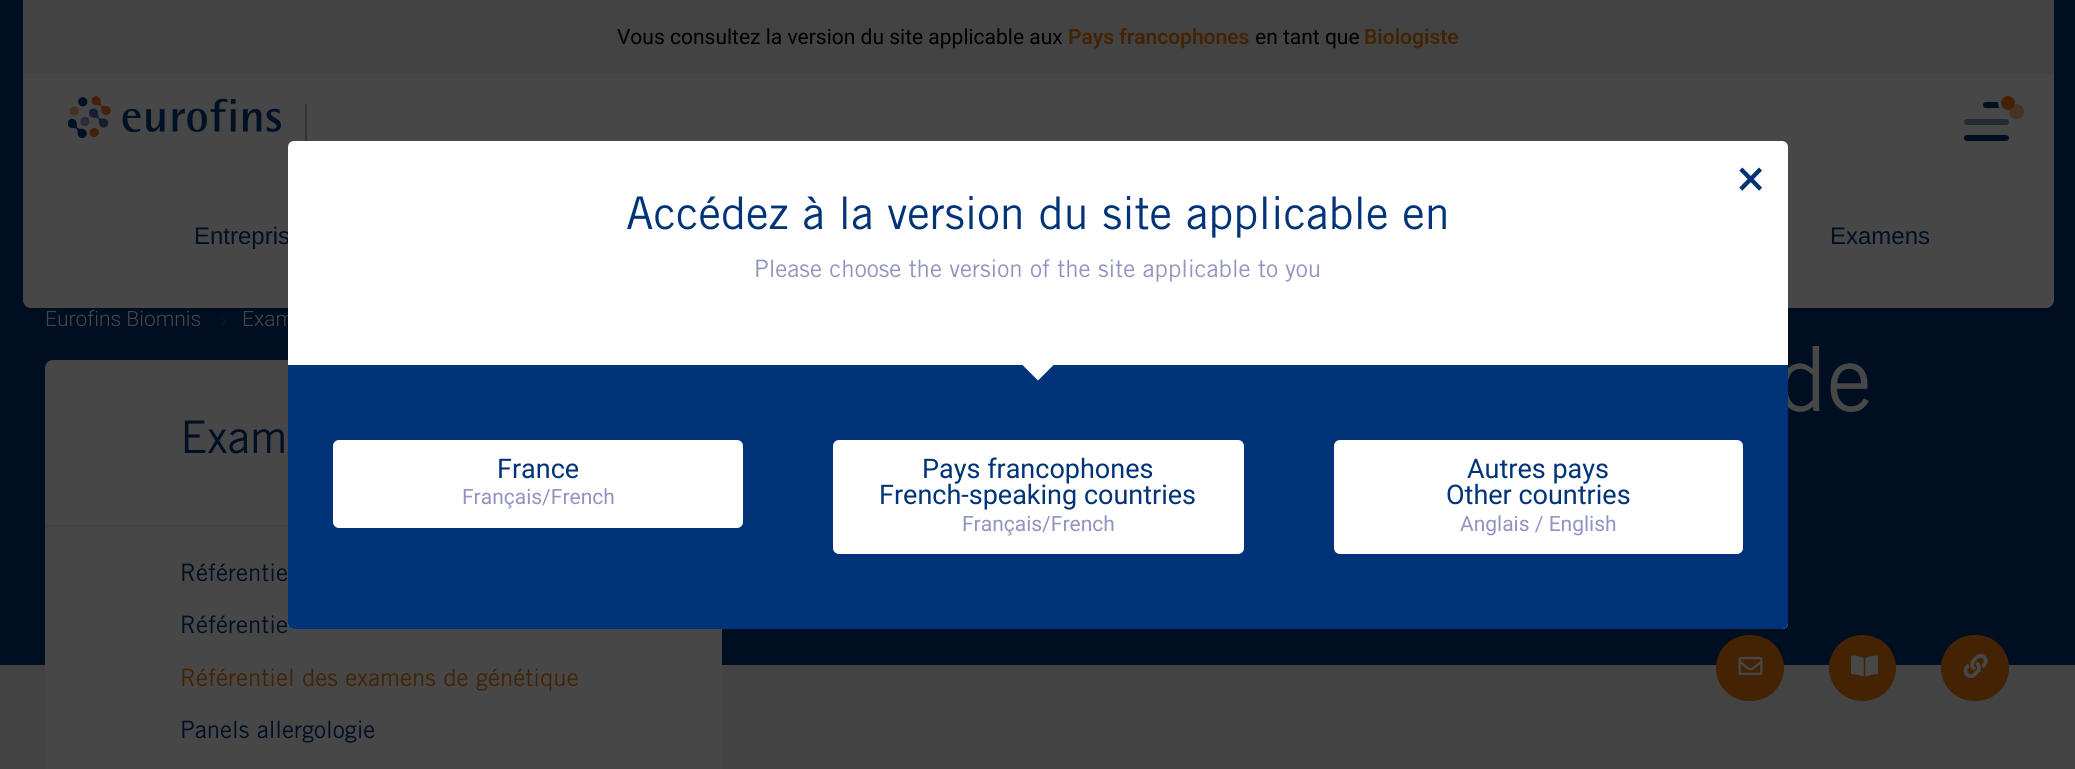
#include <cairo/cairo.h>
#include <math.h>
#include <stddef.h>

static cairo_t *cr;

static void rgb(unsigned color)
{
	cairo_set_source_rgb(cr, (color >> 16) / 255.0, (color >> 8 & 255) / 255.0, (color & 255) / 255.0);
}

static void rrect(double x, double y, double w, double h, double r)
{
	cairo_new_sub_path(cr);
	cairo_arc(cr, x + w - r, y + h - r, r, 0, M_PI / 2);
	cairo_arc(cr, x + r, y + h - r, r, M_PI / 2, M_PI);
	cairo_arc(cr, x + r, y + r, r, M_PI, 1.5 * M_PI);
	cairo_arc(cr, x + w - r, y + r, r, 1.5 * M_PI, 2 * M_PI);
	cairo_close_path(cr);
}

static void image(const char *path, double x, double y, double w, double h)
{
	cairo_surface_t *image = cairo_image_surface_create_from_png(path);
	cairo_save(cr);
	cairo_set_source_surface(cr, image, x, y);
	cairo_rectangle(cr, x, y, w, h);
	cairo_fill(cr);
	cairo_restore(cr);
	cairo_surface_destroy(image);
}

int main(void) {
	cairo_surface_t *surface = cairo_image_surface_create(CAIRO_FORMAT_RGB24, 2075, 769);
	cr = cairo_create(surface);
	cairo_font_options_t *options = cairo_font_options_create();
	cairo_font_options_set_hint_metrics(options, CAIRO_HINT_METRICS_OFF);
	cairo_font_options_set_hint_style(options, CAIRO_HINT_STYLE_NONE);
	cairo_set_font_options(cr, options);
	cairo_set_miter_limit(cr, 4);
	rgb(0x434343);
	cairo_paint(cr);
	rgb(0x000e22);
	cairo_rectangle(cr, 0, 0, 2075, 665);
	cairo_fill(cr);
	rgb(0x474747);
	cairo_new_path(cr);
	cairo_move_to(cr, 23, 0);
	cairo_line_to(cr, 2054, 0);
	cairo_line_to(cr, 2054, 300);
	cairo_curve_to(cr, 2054, 304.5, 2050.5, 308, 2046, 308);
	cairo_line_to(cr, 31, 308);
	cairo_curve_to(cr, 26.5, 308, 23, 304.5, 23, 300);
	cairo_close_path(cr);
	cairo_fill(cr);
	rgb(0x434343);
	cairo_rectangle(cr, 23, 0, 2031, 74);
	cairo_fill(cr);
	image("img/1.png", 68, 96, 239, 45);
	rgb(0x000e22);
	rrect(1983, 102, 26, 6, 3);
	cairo_fill(cr);
	rgb(0x242b35);
	rrect(1964, 119, 45, 6, 3);
	cairo_fill(cr);
	rgb(0x000e22);
	rrect(1964, 135, 45, 6, 3);
	cairo_fill(cr);
	rgb(0x432303);
	cairo_arc(cr, 2008, 103, 8.5, 0, 2 * M_PI);
	cairo_fill_preserve(cr);
	rgb(0x474747);
	cairo_set_line_width(cr, 3);
	cairo_stroke(cr);
	cairo_set_source_rgba(cr, 0.263, 0.137, 0.012, 0.5);
	cairo_arc(cr, 2016.5, 111.5, 7.5, 0, 2 * M_PI);
	cairo_fill(cr);
	image("img/2.png", 221, 317, 6, 9);
	rgb(0x474747);
	rrect(45, 360, 677, 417, 8);
	cairo_fill(cr);
	rgb(0x424242);
	cairo_rectangle(cr, 45, 525, 243, 2);
	cairo_fill(cr);
	rgb(0x432303);
	rrect(1716, 635, 68, 66, 33);
	cairo_fill(cr);
	image("img/3.png", 1738, 657, 25, 18);
	rrect(1829, 635, 67, 66, 33);
	cairo_fill(cr);
	image("img/4.png", 1851, 655, 27, 22);
	rrect(1941, 635, 68, 66, 33);
	cairo_fill(cr);
	image("img/5.png", 1963, 654, 25, 24);
	cairo_select_font_face(cr, "Roboto", CAIRO_FONT_SLANT_NORMAL, CAIRO_FONT_WEIGHT_NORMAL);
	cairo_set_font_size(cr, 21);
	rgb(0x000000);
	cairo_move_to(cr, 617, 44);
	cairo_show_text(cr, "Vous consultez la version du site applicable aux");
	cairo_select_font_face(cr, "Roboto SemiBold", CAIRO_FONT_SLANT_NORMAL, CAIRO_FONT_WEIGHT_NORMAL);
	rgb(0x432305);
	cairo_move_to(cr, 1068, 44);
	cairo_show_text(cr, "Pays francophones");
	cairo_select_font_face(cr, "Roboto", CAIRO_FONT_SLANT_NORMAL, CAIRO_FONT_WEIGHT_NORMAL);
	rgb(0x000000);
	cairo_move_to(cr, 1255, 44);
	cairo_show_text(cr, "en tant que");
	cairo_select_font_face(cr, "Roboto SemiBold", CAIRO_FONT_SLANT_NORMAL, CAIRO_FONT_WEIGHT_NORMAL);
	rgb(0x432305);
	cairo_move_to(cr, 1364, 44);
	cairo_show_text(cr, "Biologiste");
	cairo_select_font_face(cr, "Liberation Sans", CAIRO_FONT_SLANT_NORMAL, CAIRO_FONT_WEIGHT_NORMAL);
	cairo_set_font_size(cr, 24);
	rgb(0x000f24);
	cairo_move_to(cr, 194, 244);
	cairo_show_text(cr, "Entrepris");
	cairo_move_to(cr, 1830, 244);
	cairo_show_text(cr, "Examens");
	cairo_select_font_face(cr, "Roboto Light", CAIRO_FONT_SLANT_NORMAL, CAIRO_FONT_WEIGHT_NORMAL);
	cairo_set_font_size(cr, 21);
	rgb(0x474747);
	cairo_move_to(cr, 45, 326);
	cairo_show_text(cr, "Eurofins Biomnis");
	cairo_move_to(cr, 242, 326);
	cairo_show_text(cr, "Exam");
	cairo_select_font_face(cr, "Trade Gothic", CAIRO_FONT_SLANT_NORMAL, CAIRO_FONT_WEIGHT_NORMAL);
	cairo_set_font_size(cr, 90);
	cairo_move_to(cr, 1777, 411);
	cairo_show_text(cr, "de");
	rgb(0xffffff);
	rrect(288, 141, 1500, 488, 6);
	cairo_fill(cr);
	rgb(0x003377);
	cairo_new_path(cr);
	cairo_move_to(cr, 288, 365);
	cairo_line_to(cr, 1788, 365);
	cairo_line_to(cr, 1788, 623);
	cairo_curve_to(cr, 1788, 626.5, 1785.5, 629, 1782, 629);
	cairo_line_to(cr, 294, 629);
	cairo_curve_to(cr, 290.5, 629, 288, 626.5, 288, 623);
	cairo_close_path(cr);
	cairo_fill(cr);
	rgb(0xffffff);
	rrect(1334, 440, 409, 114, 6);
	cairo_fill(cr);
	cairo_select_font_face(cr, "Roboto", CAIRO_FONT_SLANT_NORMAL, CAIRO_FONT_WEIGHT_NORMAL);
	cairo_set_font_size(cr, 21);
	rgb(0x9194c0);
	cairo_move_to(cr, 1460, 531);
	cairo_show_text(cr, "Anglais / English");
	cairo_set_font_size(cr, 27);
	rgb(0x003377);
	cairo_move_to(cr, 1446, 504);
	cairo_show_text(cr, "Other countries");
	cairo_move_to(cr, 1467, 478);
	cairo_show_text(cr, "Autres pays");
	rgb(0xffffff);
	rrect(833, 440, 411, 114, 6);
	cairo_fill(cr);
	cairo_set_font_size(cr, 21);
	rgb(0x9194c0);
	cairo_move_to(cr, 962, 531);
	cairo_show_text(cr, "Français/French");
	cairo_set_font_size(cr, 27);
	rgb(0x003377);
	cairo_move_to(cr, 879, 504);
	cairo_show_text(cr, "French-speaking countries");
	cairo_move_to(cr, 922, 478);
	cairo_show_text(cr, "Pays francophones");
	rgb(0xffffff);
	rrect(333, 440, 410, 88, 6);
	cairo_fill(cr);
	cairo_set_font_size(cr, 21);
	rgb(0x9194c0);
	cairo_move_to(cr, 462, 504);
	cairo_show_text(cr, "Français/French");
	cairo_set_font_size(cr, 27);
	rgb(0x003377);
	cairo_move_to(cr, 497, 478);
	cairo_show_text(cr, "France");
	rgb(0xffffff);
	cairo_new_path(cr);
	cairo_move_to(cr, 1038, 349);
	cairo_line_to(cr, 1054, 364.5);
	cairo_line_to(cr, 1038, 380.5);
	cairo_line_to(cr, 1022, 364.5);
	cairo_close_path(cr);
	cairo_fill(cr);
	cairo_set_source_rgba(cr, 0.016, 0.212, 0.475, 0.2);
	cairo_rectangle(cr, 288, 624, 1500, 5);
	cairo_fill(cr);
	cairo_set_font_size(cr, 52);
	rgb(0x003377);
	cairo_move_to(cr, 1737, 196);
	cairo_show_text(cr, "×");
	cairo_select_font_face(cr, "Trade Gothic", CAIRO_FONT_SLANT_NORMAL, CAIRO_FONT_WEIGHT_NORMAL);
	cairo_set_font_size(cr, 24);
	rgb(0x9194c0);
	cairo_move_to(cr, 754, 277);
	cairo_show_text(cr, "Please choose the version of the site applicable to you");
	cairo_set_font_size(cr, 45);
	rgb(0x003377);
	cairo_move_to(cr, 626, 229);
	cairo_show_text(cr, "Accédez à la version du site applicable en");
	rgb(0x000f24);
	cairo_move_to(cr, 180, 453);
	cairo_show_text(cr, "Exam");
	cairo_set_font_size(cr, 24);
	cairo_move_to(cr, 180, 581);
	cairo_show_text(cr, "Référentie");
	cairo_move_to(cr, 180, 633);
	cairo_show_text(cr, "Référentie");
	rgb(0x432305);
	cairo_move_to(cr, 180, 686);
	cairo_show_text(cr, "Référentiel des examens de génétique");
	rgb(0x000f24);
	cairo_move_to(cr, 180, 738);
	cairo_show_text(cr, "Panels allergologie");
	cairo_surface_write_to_png(surface, "page.png");
	cairo_font_options_destroy(options);
	cairo_destroy(cr);
	cairo_surface_destroy(surface);
	return 0;
}
